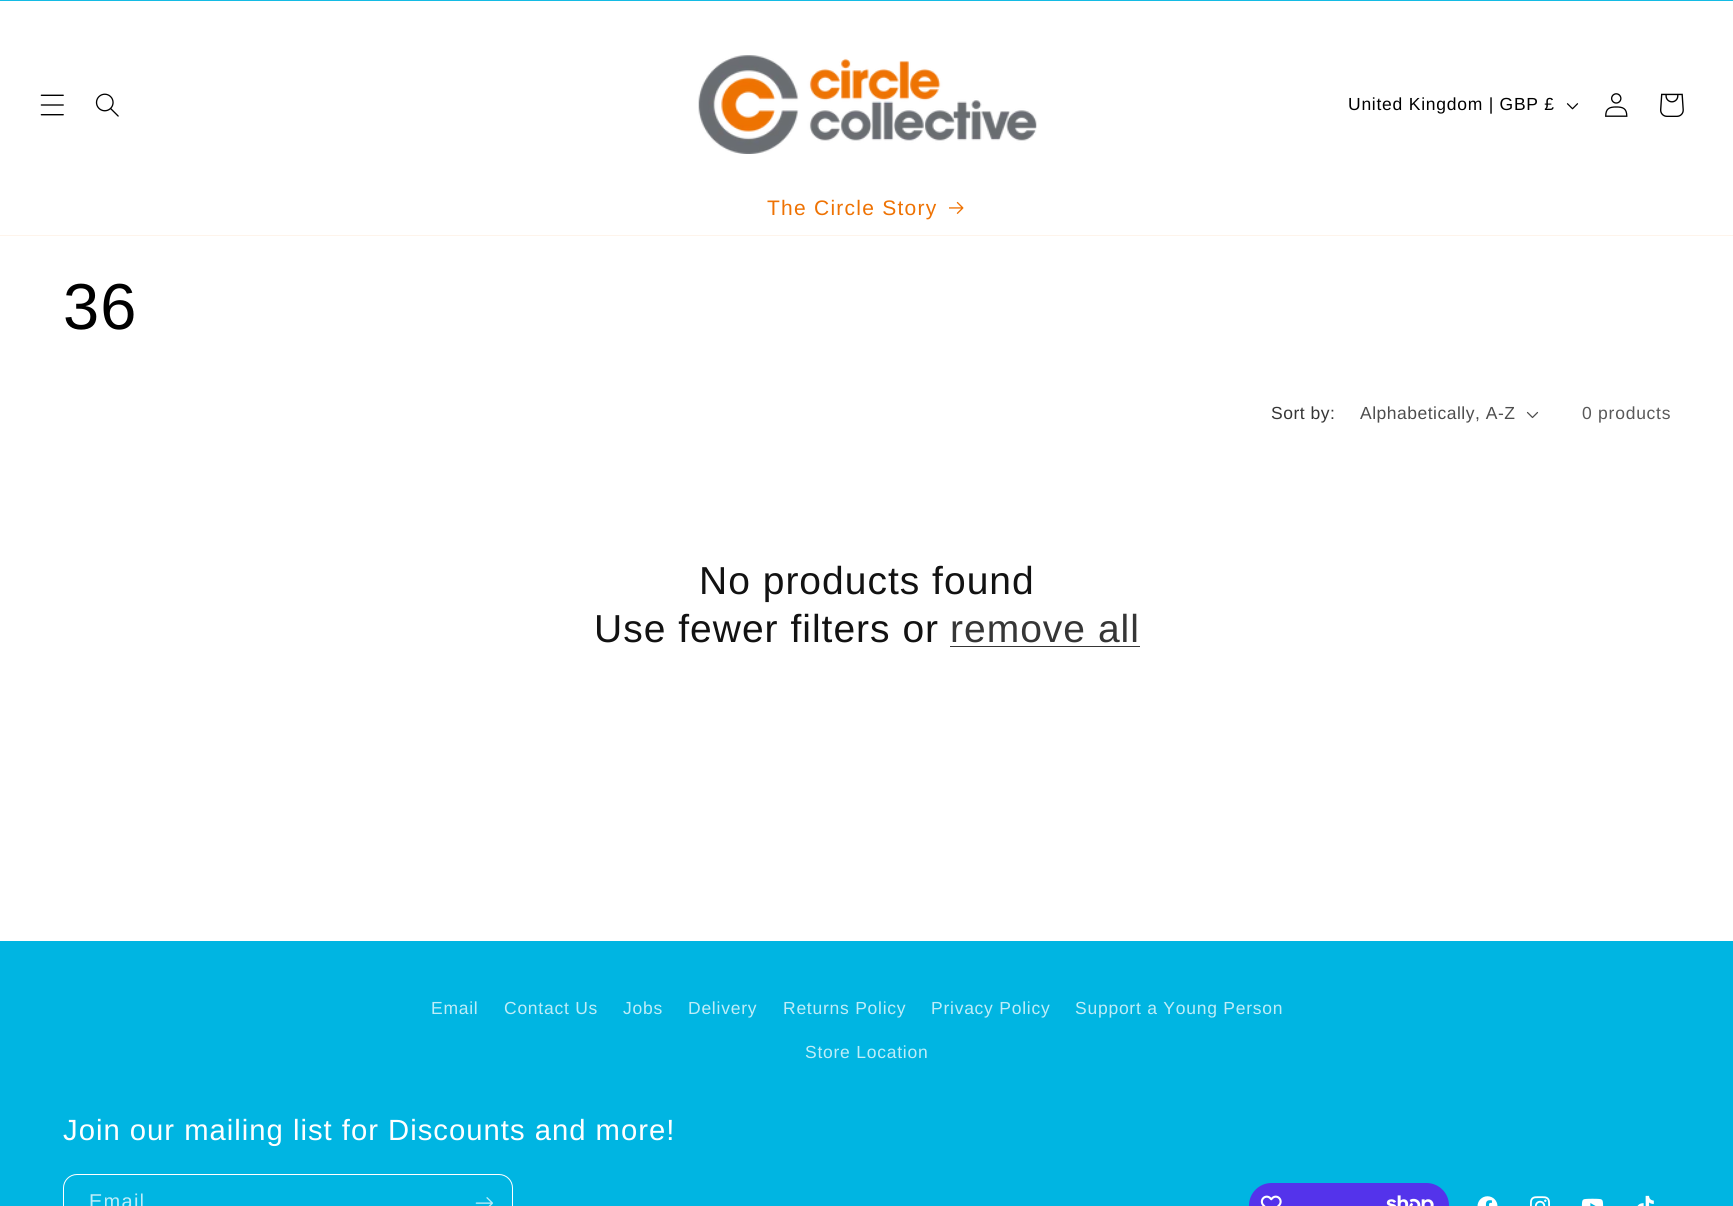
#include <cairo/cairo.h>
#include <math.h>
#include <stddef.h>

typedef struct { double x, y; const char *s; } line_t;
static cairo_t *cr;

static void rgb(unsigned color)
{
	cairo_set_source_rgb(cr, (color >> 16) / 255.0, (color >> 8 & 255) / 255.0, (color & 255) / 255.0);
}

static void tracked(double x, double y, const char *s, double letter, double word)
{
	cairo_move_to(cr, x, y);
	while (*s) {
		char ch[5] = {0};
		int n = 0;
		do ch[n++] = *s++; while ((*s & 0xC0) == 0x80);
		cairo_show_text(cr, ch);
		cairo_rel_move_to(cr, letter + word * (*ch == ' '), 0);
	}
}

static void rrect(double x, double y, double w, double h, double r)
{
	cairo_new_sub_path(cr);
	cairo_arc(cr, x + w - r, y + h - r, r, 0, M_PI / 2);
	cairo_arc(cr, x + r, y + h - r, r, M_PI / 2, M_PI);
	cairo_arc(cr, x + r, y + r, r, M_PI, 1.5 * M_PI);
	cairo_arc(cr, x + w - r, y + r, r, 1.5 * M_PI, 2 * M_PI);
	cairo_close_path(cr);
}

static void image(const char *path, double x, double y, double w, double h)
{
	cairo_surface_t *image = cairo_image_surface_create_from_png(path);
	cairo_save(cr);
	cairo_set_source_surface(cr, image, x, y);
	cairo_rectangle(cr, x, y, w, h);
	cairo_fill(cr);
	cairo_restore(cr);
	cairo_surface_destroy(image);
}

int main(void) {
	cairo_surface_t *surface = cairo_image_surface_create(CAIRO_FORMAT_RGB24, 1733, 1206);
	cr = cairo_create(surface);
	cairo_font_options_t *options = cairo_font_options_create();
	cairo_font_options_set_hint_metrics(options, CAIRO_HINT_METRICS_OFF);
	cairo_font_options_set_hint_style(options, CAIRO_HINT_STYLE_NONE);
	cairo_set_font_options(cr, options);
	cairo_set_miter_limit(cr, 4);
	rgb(0xffffff);
	cairo_paint(cr);
	rgb(0x14bbe4);
	cairo_rectangle(cr, 0, 0, 1733, 1);
	cairo_fill(cr);
	image("img/1.png", 40, 94, 24, 22);
	image("img/2.png", 95, 93, 24, 24);
	image("img/3.png", 698, 55, 339, 99);
	image("img/4.png", 1566, 103, 13, 7);
	image("img/5.png", 1605, 93, 23, 24);
	image("img/6.png", 1660, 93, 24, 24);
	rgb(0xfef4eb);
	cairo_rectangle(cr, 0, 235, 1733, 1);
	cairo_fill(cr);
	image("img/7.png", 949, 201, 15, 13);
	image("img/8.png", 1526, 411, 13, 8);
	rgb(0x363636);
	cairo_rectangle(cr, 950, 646, 190, 1);
	cairo_fill(cr);
	rgb(0x00b5e2);
	cairo_rectangle(cr, 0, 941, 1733, 265);
	cairo_fill(cr);
	rrect(63.5, 1174.5, 449, 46, 13.5);
	rgb(0xffffff);
	cairo_set_line_width(cr, 1);
	cairo_stroke(cr);
	image("img/9.png", 475, 1197, 18, 9);
	rgb(0x5433eb);
	rrect(1249, 1183, 200, 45, 22.5);
	cairo_fill(cr);
	image("img/10.png", 1260, 1195, 22, 11);
	image("img/11.png", 1386, 1195, 48, 11);
	image("img/12.png", 1477, 1196, 21, 10);
	image("img/13.png", 1530, 1196, 20, 10);
	image("img/14.png", 1581, 1198, 23, 8);
	image("img/15.png", 1637, 1195, 17, 11);
	cairo_select_font_face(cr, "Liberation Sans", CAIRO_FONT_SLANT_NORMAL, CAIRO_FONT_WEIGHT_NORMAL);
	cairo_set_font_size(cr, 17.5);
	rgb(0x000000);
	tracked(1348, 110, "United Kingdom | GBP £", 0.75, 0);
	cairo_set_font_size(cr, 21);
	rgb(0xee7203);
	tracked(767, 215, "The Circle Story", 1.25, 0);
	cairo_set_font_size(cr, 65);
	rgb(0x000000);
	tracked(63, 329, "36", 1, 0);
	cairo_set_font_size(cr, 17.5);
	rgb(0x363636);
	tracked(1271, 419, "Sort by:", 0.5, 0);
	rgb(0x4d4d4d);
	tracked(1360, 419, "Alphabetically, A-Z", 0.5, 0);
	rgb(0x595959);
	tracked(1582, 419, "0 products", 0.75, 0);
	cairo_set_font_size(cr, 39);
	rgb(0x121212);
	tracked(699, 594, "No products found", 1, 0);
	tracked(594, 642, "Use fewer filters or", 1, 0);
	rgb(0x363636);
	tracked(950, 642, "remove all", 1, 0);
	cairo_set_font_size(cr, 17.5);
	rgb(0xbfedf8);
	{
		static const line_t items[] = {
			{431, 1014, "Email"},
			{504, 1014, "Contact Us"},
			{623, 1014, "Jobs"},
			{688, 1014, "Delivery"},
			{783, 1014, "Returns Policy"},
			{931, 1014, "Privacy Policy"},
			{1075, 1014, "Support a Young Person"},
			{805, 1058, "Store Location"},
		};
		for (size_t i = 0; i < sizeof items / sizeof *items; i++) {
			tracked(items[i].x, items[i].y, items[i].s, 0.75, 0);
		}
	}
	cairo_set_font_size(cr, 29.25);
	rgb(0xffffff);
	tracked(63, 1140, "Join our mailing list for Discounts and more!", 1, 0);
	cairo_set_font_size(cr, 20);
	rgb(0xbfedf8);
	tracked(89, 1208, "Email", 1.25, 0);
	cairo_surface_write_to_png(surface, "page.png");
	cairo_font_options_destroy(options);
	cairo_destroy(cr);
	cairo_surface_destroy(surface);
	return 0;
}
